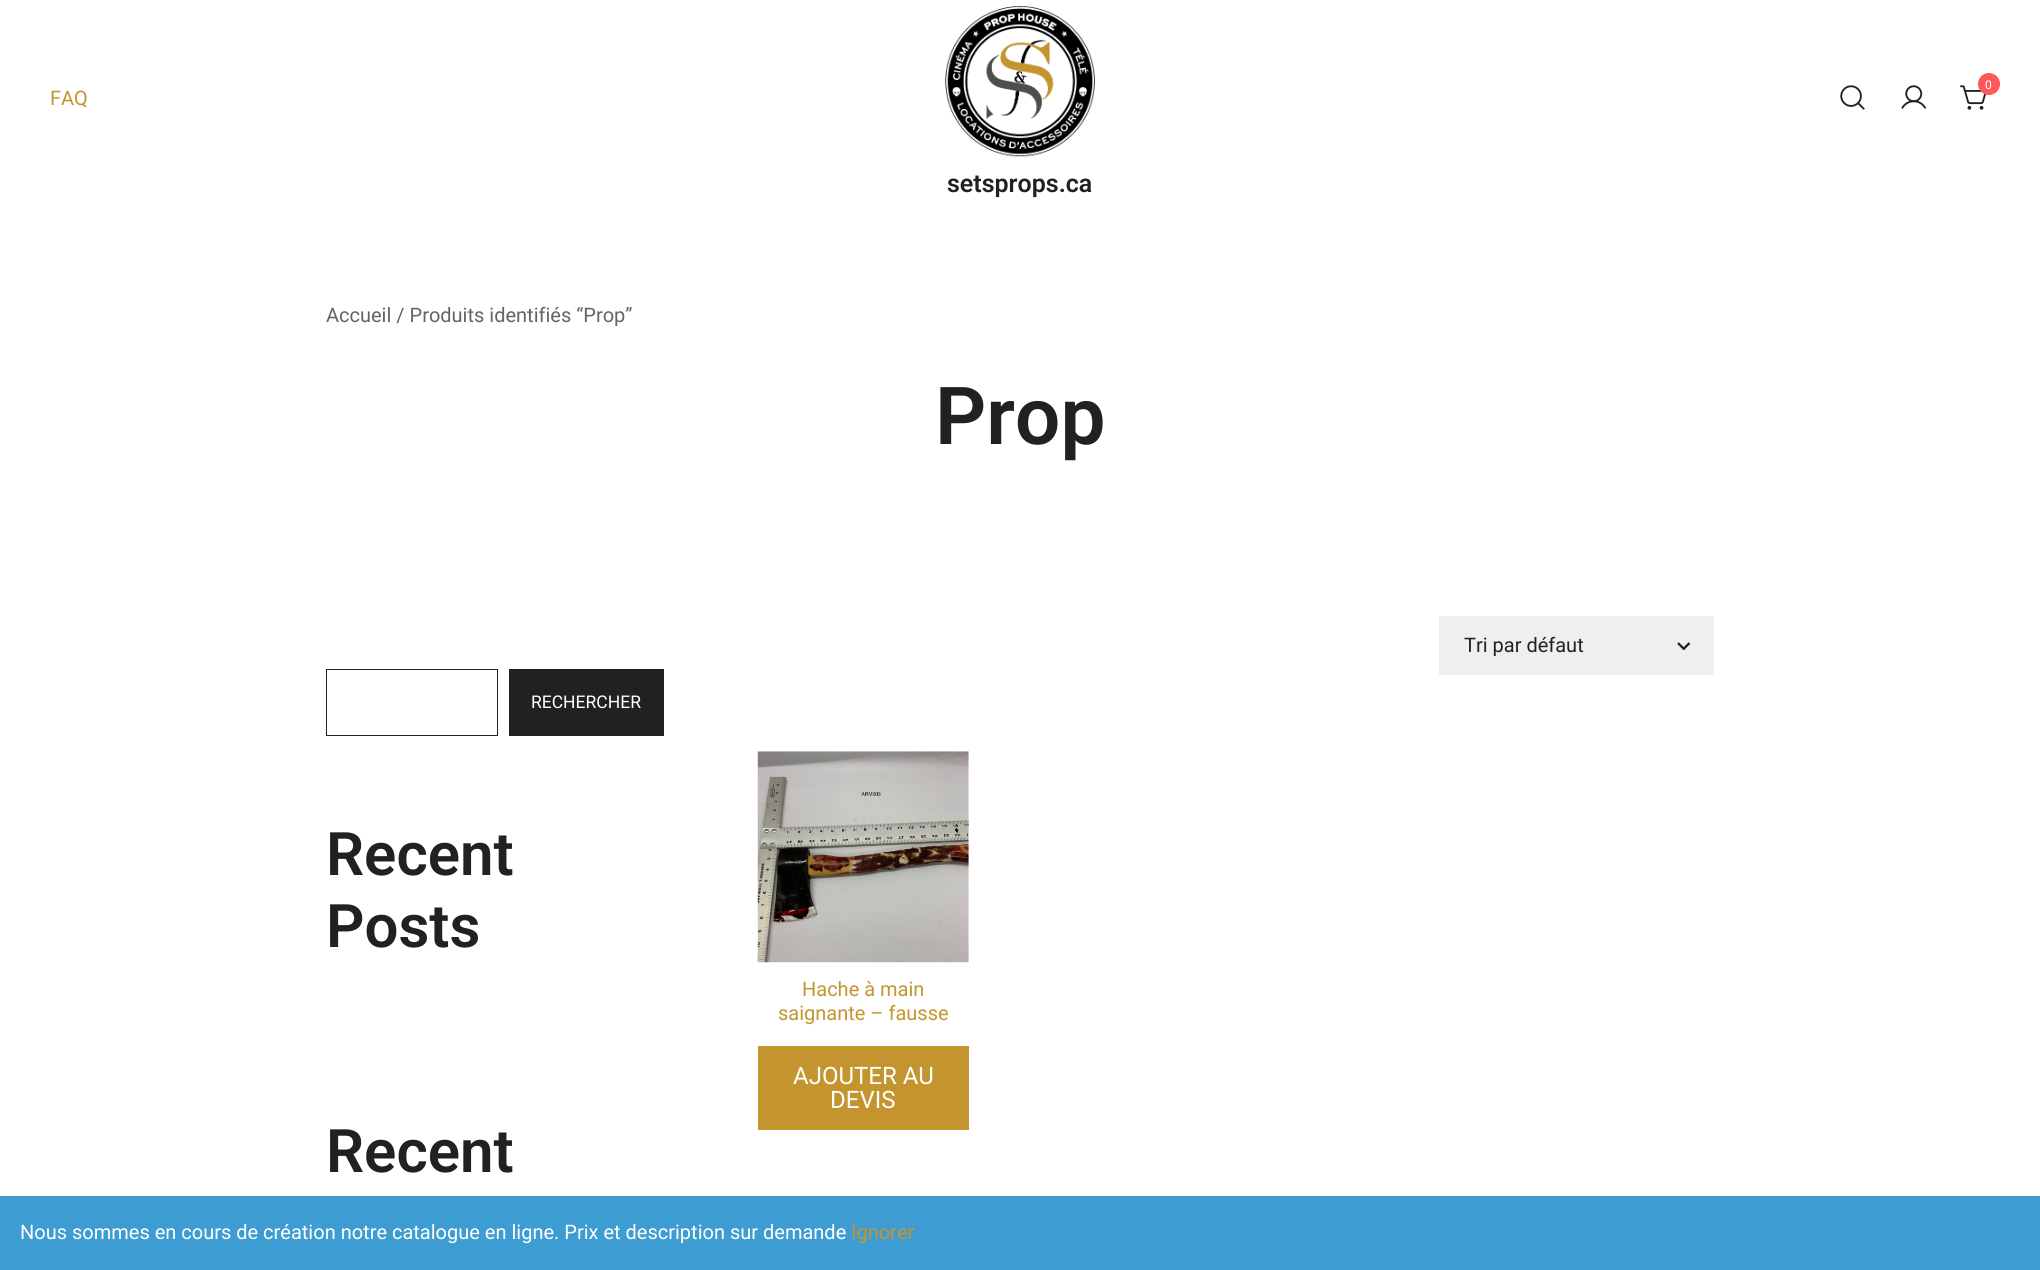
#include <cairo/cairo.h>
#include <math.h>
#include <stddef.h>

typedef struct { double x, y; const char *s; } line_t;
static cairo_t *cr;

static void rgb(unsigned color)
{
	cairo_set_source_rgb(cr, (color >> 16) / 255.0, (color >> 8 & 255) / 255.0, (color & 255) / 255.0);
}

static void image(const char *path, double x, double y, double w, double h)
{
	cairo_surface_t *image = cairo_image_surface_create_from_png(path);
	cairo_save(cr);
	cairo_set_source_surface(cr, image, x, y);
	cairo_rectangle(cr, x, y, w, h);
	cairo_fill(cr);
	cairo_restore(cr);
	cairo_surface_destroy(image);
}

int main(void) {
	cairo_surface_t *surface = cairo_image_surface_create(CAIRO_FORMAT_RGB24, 2040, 1270);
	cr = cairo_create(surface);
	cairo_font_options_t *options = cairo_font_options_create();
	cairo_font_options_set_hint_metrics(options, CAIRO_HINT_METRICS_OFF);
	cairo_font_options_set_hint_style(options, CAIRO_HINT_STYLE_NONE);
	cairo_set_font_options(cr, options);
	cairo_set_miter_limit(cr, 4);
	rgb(0xffffff);
	cairo_paint(cr);
	image("img/1.png", 1840, 85, 25, 25);
	image("img/2.png", 1901, 85, 25, 24);
	image("img/3.png", 1960, 85, 26, 25);
	rgb(0xff5858);
	cairo_arc(cr, 1989, 84, 10.5, 0, 2 * M_PI);
	cairo_fill_preserve(cr);
	cairo_set_line_width(cr, 1);
	cairo_stroke(cr);
	image("img/4.png", 945, 6, 150, 151);
	cairo_rectangle(cr, 326.5, 669.5, 171, 66);
	rgb(0x212121);
	cairo_stroke(cr);
	cairo_rectangle(cr, 509, 669, 155, 67);
	cairo_fill(cr);
	rgb(0xefefef);
	cairo_rectangle(cr, 1439, 616, 275, 59);
	cairo_fill(cr);
	image("img/5.png", 1677, 642, 14, 9);
	image("img/6.png", 757, 751, 212, 212);
	rgb(0xc4942f);
	cairo_rectangle(cr, 758, 1046, 211, 84);
	cairo_fill(cr);
	rgb(0x3d9cd2);
	cairo_rectangle(cr, 0, 1196, 2040, 74);
	cairo_fill(cr);
	cairo_select_font_face(cr, "Roboto", CAIRO_FONT_SLANT_NORMAL, CAIRO_FONT_WEIGHT_NORMAL);
	cairo_set_font_size(cr, 12);
	rgb(0xffffff);
	cairo_move_to(cr, 1985, 89);
	cairo_show_text(cr, "0");
	cairo_set_font_size(cr, 20);
	rgb(0xc4942f);
	cairo_move_to(cr, 50, 105);
	cairo_show_text(cr, "FAQ");
	cairo_select_font_face(cr, "Roboto SemiBold", CAIRO_FONT_SLANT_NORMAL, CAIRO_FONT_WEIGHT_NORMAL);
	cairo_set_font_size(cr, 25);
	rgb(0x212121);
	cairo_move_to(cr, 947, 192);
	cairo_show_text(cr, "setsprops.ca");
	cairo_select_font_face(cr, "Roboto", CAIRO_FONT_SLANT_NORMAL, CAIRO_FONT_WEIGHT_NORMAL);
	cairo_set_font_size(cr, 20);
	rgb(0x646464);
	cairo_move_to(cr, 326, 322);
	cairo_show_text(cr, "Accueil / Produits identifiés “Prop”");
	cairo_select_font_face(cr, "Roboto SemiBold", CAIRO_FONT_SLANT_NORMAL, CAIRO_FONT_WEIGHT_NORMAL);
	cairo_set_font_size(cr, 80);
	rgb(0x212121);
	cairo_move_to(cr, 935, 444);
	cairo_show_text(cr, "Prop");
	cairo_select_font_face(cr, "Roboto", CAIRO_FONT_SLANT_NORMAL, CAIRO_FONT_WEIGHT_NORMAL);
	cairo_set_font_size(cr, 17.5);
	rgb(0xffffff);
	cairo_move_to(cr, 531, 708);
	cairo_show_text(cr, "RECHERCHER");
	cairo_select_font_face(cr, "Roboto SemiBold", CAIRO_FONT_SLANT_NORMAL, CAIRO_FONT_WEIGHT_NORMAL);
	cairo_set_font_size(cr, 60);
	rgb(0x212121);
	{
		static const line_t items[] = {
			{326, 875, "Recent"},
			{326, 947, "Posts"},
			{326, 1172, "Recent"},
		};
		for (size_t i = 0; i < sizeof items / sizeof *items; i++) {
			cairo_move_to(cr, items[i].x, items[i].y);
			cairo_show_text(cr, items[i].s);
		}
	}
	cairo_select_font_face(cr, "Roboto", CAIRO_FONT_SLANT_NORMAL, CAIRO_FONT_WEIGHT_NORMAL);
	cairo_set_font_size(cr, 20);
	cairo_move_to(cr, 1464, 652);
	cairo_show_text(cr, "Tri par défaut");
	rgb(0xc4942f);
	cairo_move_to(cr, 802, 996);
	cairo_show_text(cr, "Hache à main");
	cairo_move_to(cr, 778, 1020);
	cairo_show_text(cr, "saignante – fausse");
	cairo_set_font_size(cr, 24);
	rgb(0xffffff);
	cairo_move_to(cr, 793, 1084);
	cairo_show_text(cr, "AJOUTER AU");
	cairo_move_to(cr, 830, 1108);
	cairo_show_text(cr, "DEVIS");
	cairo_set_font_size(cr, 20);
	cairo_move_to(cr, 20, 1239);
	cairo_show_text(cr, "Nous sommes en cours de création notre catalogue en ligne. Prix et description sur demande");
	rgb(0xc4942f);
	cairo_move_to(cr, 851, 1239);
	cairo_show_text(cr, "Ignorer");
	cairo_surface_write_to_png(surface, "page.png");
	cairo_font_options_destroy(options);
	cairo_destroy(cr);
	cairo_surface_destroy(surface);
	return 0;
}
